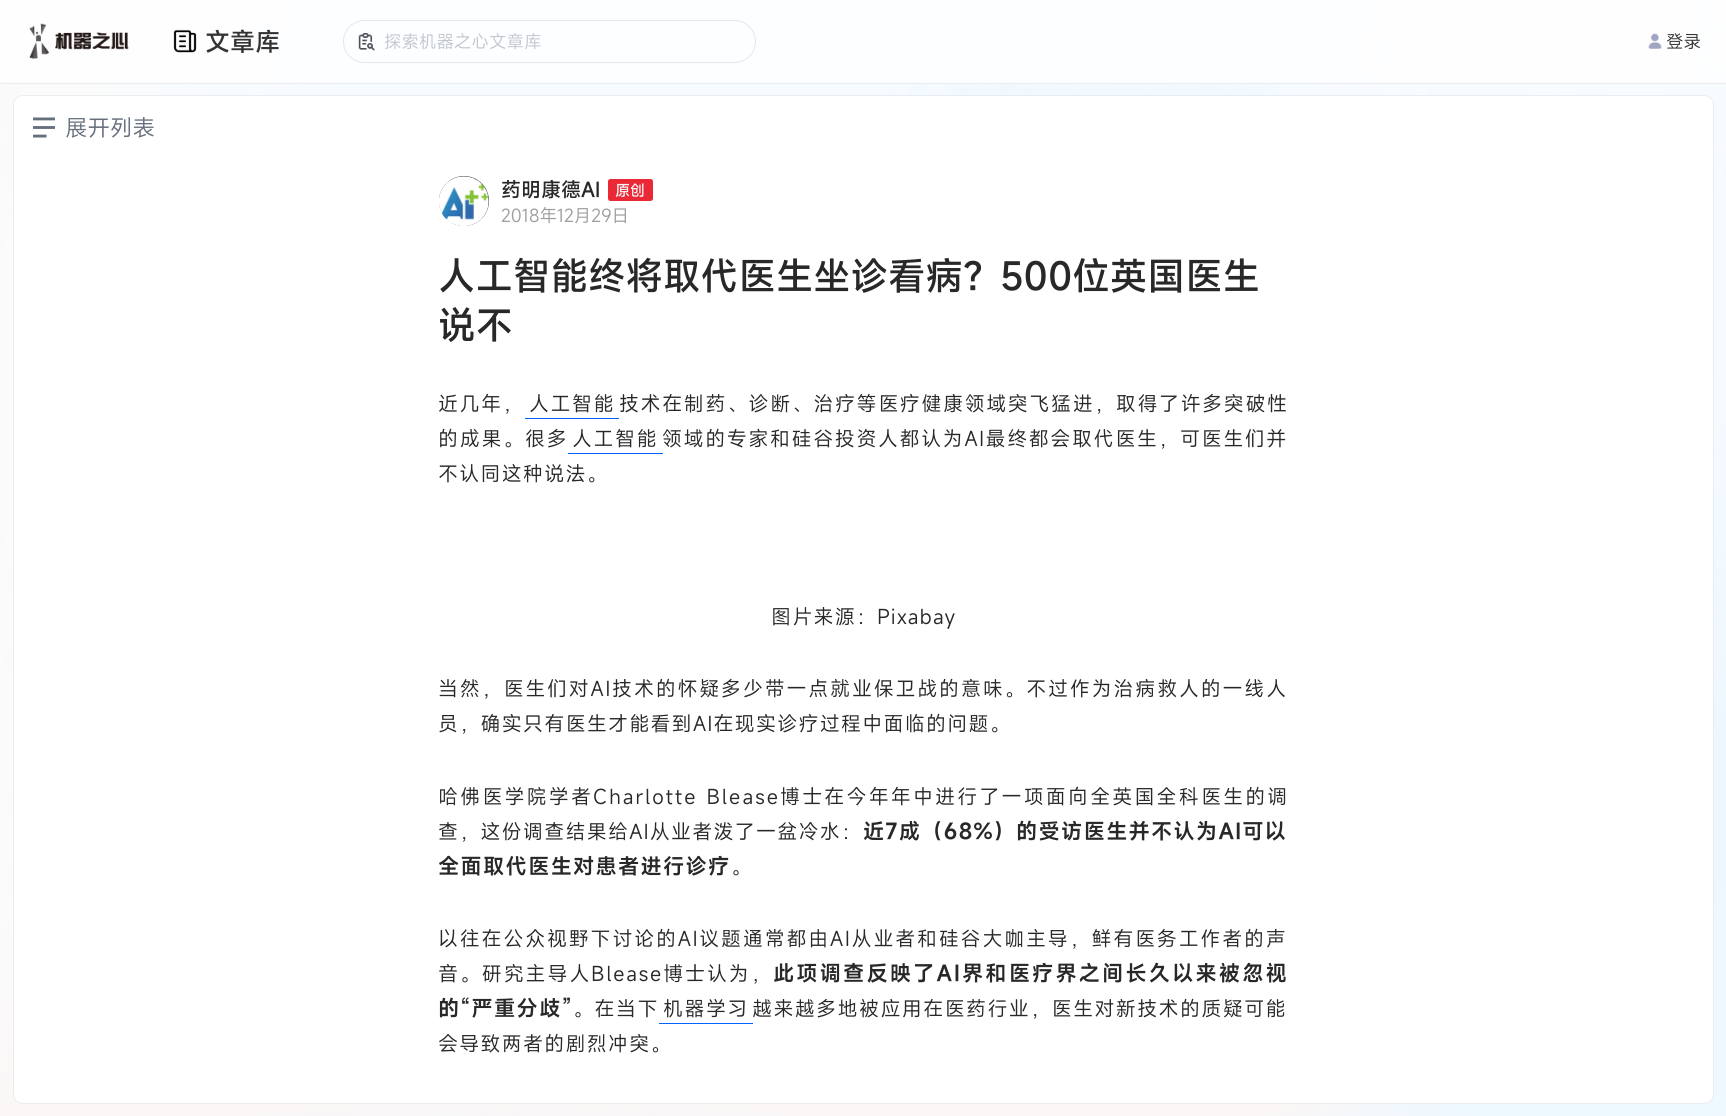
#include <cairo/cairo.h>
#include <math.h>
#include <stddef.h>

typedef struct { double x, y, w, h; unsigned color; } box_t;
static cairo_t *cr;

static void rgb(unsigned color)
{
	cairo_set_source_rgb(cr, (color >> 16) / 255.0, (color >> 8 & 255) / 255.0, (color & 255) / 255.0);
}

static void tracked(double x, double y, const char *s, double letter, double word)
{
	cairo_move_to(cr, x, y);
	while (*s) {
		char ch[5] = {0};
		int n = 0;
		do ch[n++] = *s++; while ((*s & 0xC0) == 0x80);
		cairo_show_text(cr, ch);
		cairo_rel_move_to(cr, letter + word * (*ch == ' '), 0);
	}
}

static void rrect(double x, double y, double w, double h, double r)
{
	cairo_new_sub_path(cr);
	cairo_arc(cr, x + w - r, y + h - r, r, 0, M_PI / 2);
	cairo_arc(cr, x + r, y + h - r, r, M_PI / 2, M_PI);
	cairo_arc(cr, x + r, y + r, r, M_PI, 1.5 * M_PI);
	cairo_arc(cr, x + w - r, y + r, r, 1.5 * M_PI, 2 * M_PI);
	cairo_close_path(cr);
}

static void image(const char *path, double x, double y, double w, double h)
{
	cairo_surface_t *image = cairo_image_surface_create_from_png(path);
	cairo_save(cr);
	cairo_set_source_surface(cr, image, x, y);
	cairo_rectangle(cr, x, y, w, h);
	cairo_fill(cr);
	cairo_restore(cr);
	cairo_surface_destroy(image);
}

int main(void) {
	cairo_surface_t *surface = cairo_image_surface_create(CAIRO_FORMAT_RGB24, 1726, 1116);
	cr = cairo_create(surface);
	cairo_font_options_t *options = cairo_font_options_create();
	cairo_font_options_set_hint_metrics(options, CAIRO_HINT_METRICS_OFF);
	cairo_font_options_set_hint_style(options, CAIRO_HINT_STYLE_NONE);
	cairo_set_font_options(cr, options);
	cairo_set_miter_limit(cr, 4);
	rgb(0xffffff);
	cairo_paint(cr);
	image("img/1.png", 0, 0, 1726, 1116);
	rgb(0xebecf1);
	cairo_rectangle(cr, 0, 82, 1726, 2);
	cairo_fill(cr);
	cairo_set_source_rgba(cr, 1, 1, 1, 0.8);
	cairo_rectangle(cr, 0, 0, 1726, 83);
	cairo_fill(cr);
	image("img/2.png", 29, 23, 100, 36);
	image("img/3.png", 173, 29, 24, 24);
	rrect(343.5, 20.5, 412, 42, 21);
	rgb(0xe6e7ed);
	cairo_set_line_width(cr, 1);
	cairo_stroke(cr);
	image("img/4.png", 358, 33, 17, 18);
	image("img/5.png", 1648, 33, 14, 16);
	rgb(0xffffff);
	rrect(13.5, 95.5, 1700, 1008, 9.5);
	cairo_fill_preserve(cr);
	rgb(0xebecf1);
	cairo_stroke(cr);
	rgb(0xffffff);
	cairo_new_path(cr);
	cairo_move_to(cr, 24, 96);
	cairo_line_to(cr, 176, 96);
	cairo_line_to(cr, 176, 163);
	cairo_line_to(cr, 24, 163);
	cairo_curve_to(cr, 18.5, 163, 14, 158.5, 14, 153);
	cairo_line_to(cr, 14, 106);
	cairo_curve_to(cr, 14, 100.5, 18.5, 96, 24, 96);
	cairo_close_path(cr);
	cairo_fill(cr);
	image("img/6.png", 33, 117, 22, 21);
	rgb(0x333333);
	cairo_arc(cr, 464, 201, 25, 0, 2 * M_PI);
	cairo_fill(cr);
	image("img/7.png", 439, 176, 50, 50);
	rgb(0xeb2835);
	rrect(608, 179, 45, 22, 2.5);
	cairo_fill(cr);
	{
		static const box_t items[] = {
			{525, 418, 94, 1, 0x0062ff},
			{568, 453, 95, 1, 0x0062ff},
			{659, 1023, 94, 1, 0x0062ff},
		};
		for (size_t i = 0; i < sizeof items / sizeof *items; i++) {
			rgb(items[i].color);
			cairo_rectangle(cr, items[i].x, items[i].y, items[i].w, items[i].h);
			cairo_fill(cr);
		}
	}
	cairo_select_font_face(cr, "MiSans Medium", CAIRO_FONT_SLANT_NORMAL, CAIRO_FONT_WEIGHT_NORMAL);
	cairo_set_font_size(cr, 25);
	rgb(0x333333);
	cairo_move_to(cr, 205, 51);
	cairo_show_text(cr, "文章库");
	cairo_select_font_face(cr, "MiSans", CAIRO_FONT_SLANT_NORMAL, CAIRO_FONT_WEIGHT_NORMAL);
	cairo_set_font_size(cr, 17.5);
	rgb(0xc1c7d0);
	cairo_move_to(cr, 384, 48);
	cairo_show_text(cr, "探索机器之心文章库");
	rgb(0x333333);
	cairo_move_to(cr, 1666, 48);
	cairo_show_text(cr, "登录");
	cairo_set_font_size(cr, 22.5);
	rgb(0x666f7d);
	cairo_move_to(cr, 65, 136);
	cairo_show_text(cr, "展开列表");
	cairo_select_font_face(cr, "MiSans Medium", CAIRO_FONT_SLANT_NORMAL, CAIRO_FONT_WEIGHT_NORMAL);
	cairo_set_font_size(cr, 20);
	rgb(0x282828);
	cairo_move_to(cr, 501, 197);
	cairo_show_text(cr, "药明康德AI");
	cairo_set_font_size(cr, 15);
	rgb(0xf6f6f6);
	cairo_move_to(cr, 615, 196);
	cairo_show_text(cr, "原创");
	cairo_select_font_face(cr, "MiSans", CAIRO_FONT_SLANT_NORMAL, CAIRO_FONT_WEIGHT_NORMAL);
	cairo_set_font_size(cr, 17.5);
	rgb(0x9d9d9d);
	cairo_move_to(cr, 501, 222);
	cairo_show_text(cr, "2018年12月29日");
	cairo_select_font_face(cr, "MiSans Medium", CAIRO_FONT_SLANT_NORMAL, CAIRO_FONT_WEIGHT_NORMAL);
	cairo_set_font_size(cr, 37.5);
	rgb(0x282828);
	cairo_move_to(cr, 438, 290);
	cairo_show_text(cr, "人工智能终将取代医生坐诊看病？500位英国医生");
	cairo_move_to(cr, 438, 339);
	cairo_show_text(cr, "说不");
	cairo_select_font_face(cr, "MiSans", CAIRO_FONT_SLANT_NORMAL, CAIRO_FONT_WEIGHT_NORMAL);
	cairo_set_font_size(cr, 20);
	tracked(438, 411, "近几年，", 1.5, 0);
	tracked(529, 411, "人工智能", 1.5, 0);
	tracked(619, 411, "技术在制药、诊断、治疗等医疗健康领域突飞猛进，取得了许多突破性", 1.6, 0);
	tracked(438, 446, "的成果。很多", 1.75, 0);
	tracked(572, 446, "人工智能", 1.5, 0);
	tracked(662, 446, "领域的专家和硅谷投资人都认为AI最终都会取代医生，可医生们并", 1.6, 0);
	tracked(438, 481, "不认同这种说法。", 1.25, 0);
	tracked(771, 624, "图片来源：Pixabay", 1.25, 0);
	tracked(438, 696, "当然，医生们对AI技术的怀疑多少带一点就业保卫战的意味。不过作为治病救人的一线人", 1.8, 0);
	tracked(438, 731, "员，确实只有医生才能看到AI在现实诊疗过程中面临的问题。", 1.25, 0);
	tracked(438, 804, "哈佛医学院学者Charlotte Blease博士在今年年中进行了一项面向全英国全科医生的调", 2.15, 0);
	tracked(438, 839, "查，这份调查结果给AI从业者泼了一盆冷水：", 1.25, 0);
	cairo_select_font_face(cr, "MiSans SemiBold", CAIRO_FONT_SLANT_NORMAL, CAIRO_FONT_WEIGHT_NORMAL);
	cairo_set_font_size(cr, 21.25);
	tracked(863, 839, "近7成（68%）的受访医生并不认为AI可以", 1.25, 0);
	tracked(438, 874, "全面取代医生对患者进行诊疗", 1.25, 0);
	cairo_select_font_face(cr, "MiSans", CAIRO_FONT_SLANT_NORMAL, CAIRO_FONT_WEIGHT_NORMAL);
	cairo_set_font_size(cr, 20);
	tracked(731, 874, "。", 1.25, 0);
	tracked(438, 946, "以往在公众视野下讨论的AI议题通常都由AI从业者和硅谷大咖主导，鲜有医务工作者的声", 1.8, 0);
	tracked(438, 981, "音。研究主导人Blease博士认为，", 1.9, 0);
	cairo_select_font_face(cr, "MiSans SemiBold", CAIRO_FONT_SLANT_NORMAL, CAIRO_FONT_WEIGHT_NORMAL);
	cairo_set_font_size(cr, 21.25);
	tracked(773, 981, "此项调查反映了AI界和医疗界之间长久以来被忽视", 2.1, 0);
	tracked(438, 1016, "的“严重分歧”", 1.4, 0);
	cairo_select_font_face(cr, "MiSans", CAIRO_FONT_SLANT_NORMAL, CAIRO_FONT_WEIGHT_NORMAL);
	cairo_set_font_size(cr, 20);
	tracked(573, 1016, "。在当下", 1.5, 0);
	tracked(663, 1016, "机器学习", 1.5, 0);
	tracked(752, 1016, "越来越多地被应用在医药行业，医生对新技术的质疑可能", 1.4, 0);
	tracked(438, 1051, "会导致两者的剧烈冲突。", 1.25, 0);
	cairo_surface_write_to_png(surface, "page.png");
	cairo_font_options_destroy(options);
	cairo_destroy(cr);
	cairo_surface_destroy(surface);
	return 0;
}
